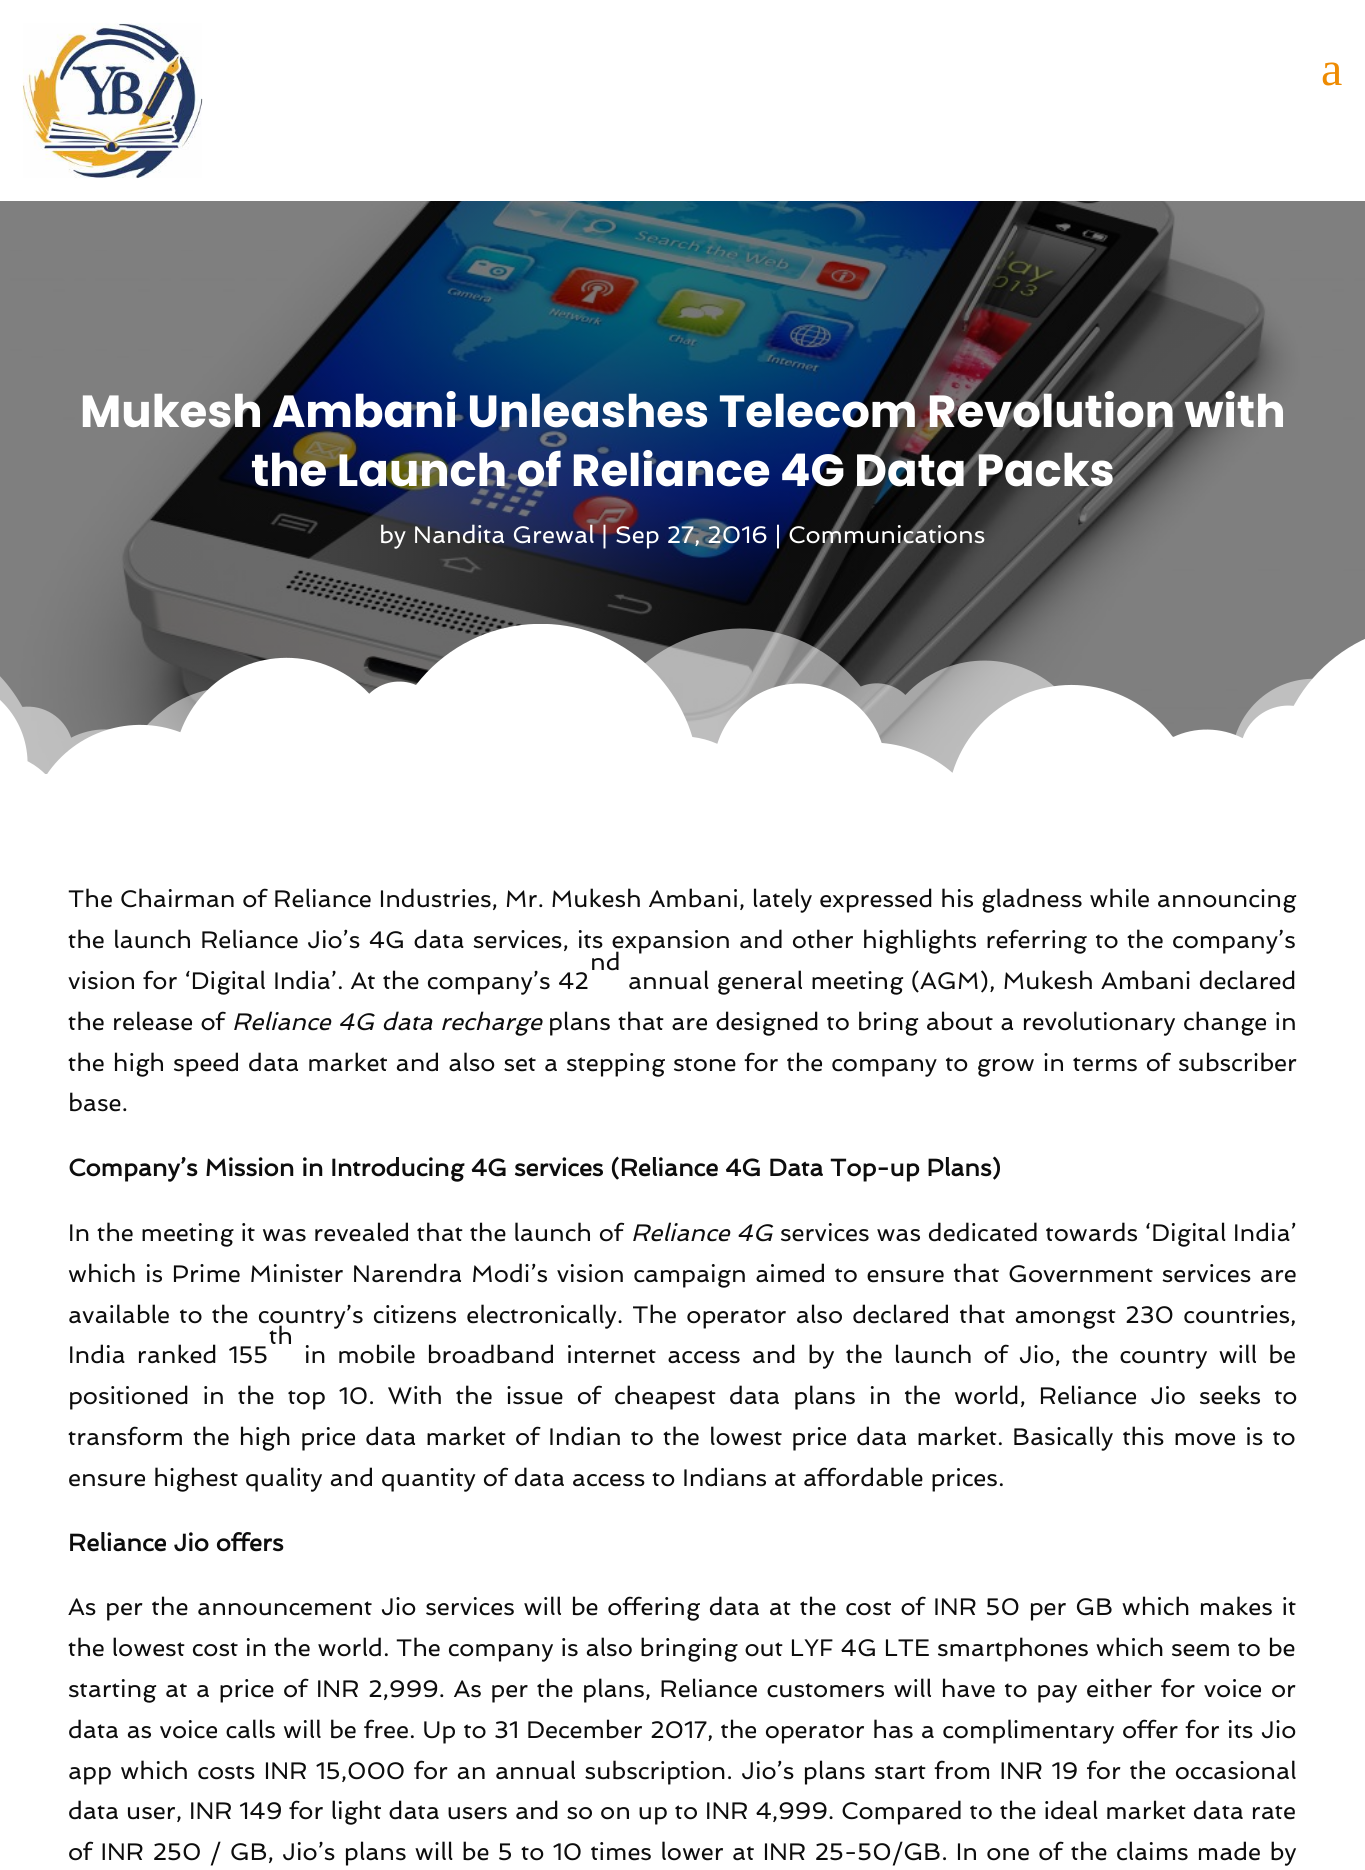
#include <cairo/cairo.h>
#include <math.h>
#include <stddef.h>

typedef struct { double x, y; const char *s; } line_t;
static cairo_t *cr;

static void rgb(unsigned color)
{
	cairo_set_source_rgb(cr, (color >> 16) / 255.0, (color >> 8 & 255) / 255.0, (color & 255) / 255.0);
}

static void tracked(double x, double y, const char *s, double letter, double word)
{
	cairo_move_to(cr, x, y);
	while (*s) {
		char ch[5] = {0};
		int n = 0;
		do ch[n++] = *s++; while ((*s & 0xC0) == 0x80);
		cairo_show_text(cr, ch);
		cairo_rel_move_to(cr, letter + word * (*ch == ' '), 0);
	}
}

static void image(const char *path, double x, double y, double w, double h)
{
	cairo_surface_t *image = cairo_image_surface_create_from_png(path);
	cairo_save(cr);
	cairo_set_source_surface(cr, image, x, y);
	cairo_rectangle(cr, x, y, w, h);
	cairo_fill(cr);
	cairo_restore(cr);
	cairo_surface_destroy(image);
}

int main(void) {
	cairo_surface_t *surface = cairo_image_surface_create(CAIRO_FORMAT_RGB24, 1365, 1870);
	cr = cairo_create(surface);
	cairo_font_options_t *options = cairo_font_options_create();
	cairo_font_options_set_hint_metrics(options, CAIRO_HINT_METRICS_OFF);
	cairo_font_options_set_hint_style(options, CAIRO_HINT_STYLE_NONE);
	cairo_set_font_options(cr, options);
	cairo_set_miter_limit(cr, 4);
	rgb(0xffffff);
	cairo_paint(cr);
	image("img/1.png", 22, 22, 181, 157);
	image("img/2.png", 0, 201, 1365, 573);
	image("img/3.png", 0, 624, 1365, 150);
	cairo_select_font_face(cr, "Liberation Serif", CAIRO_FONT_SLANT_NORMAL, CAIRO_FONT_WEIGHT_NORMAL);
	cairo_set_font_size(cr, 48);
	rgb(0xee8b02);
	cairo_move_to(cr, 1321, 85);
	cairo_show_text(cr, "a");
	cairo_select_font_face(cr, "Poppins", CAIRO_FONT_SLANT_NORMAL, CAIRO_FONT_WEIGHT_BOLD);
	cairo_set_font_size(cr, 45);
	rgb(0xffffff);
	cairo_move_to(cr, 80, 427);
	cairo_show_text(cr, "Mukesh Ambani Unleashes Telecom Revolution with");
	cairo_move_to(cr, 251, 486);
	cairo_show_text(cr, "the Launch of Reliance 4G Data Packs");
	cairo_select_font_face(cr, "Spinnaker", CAIRO_FONT_SLANT_NORMAL, CAIRO_FONT_WEIGHT_NORMAL);
	cairo_set_font_size(cr, 24);
	cairo_move_to(cr, 379, 543);
	cairo_show_text(cr, "by Nandita Grewal | Sep 27, 2016 | Communications");
	rgb(0x0d0d0d);
	cairo_move_to(cr, 68, 907);
	cairo_show_text(cr, "The Chairman of Reliance Industries, Mr. Mukesh Ambani, lately expressed his gladness while announcing");
	tracked(68, 948, "the launch Reliance Jio’s 4G data services, its expansion and other highlights referring to the company’s", 0, 1.5);
	cairo_move_to(cr, 590, 970);
	cairo_show_text(cr, "nd");
	{
		static const line_t items[] = {
			{68, 989, "vision for ‘Digital India’. At the company’s 42"},
			{628, 989, "annual general meeting (AGM), Mukesh Ambani declared"},
			{68, 1030, "the release of"},
		};
		for (size_t i = 0; i < sizeof items / sizeof *items; i++) {
			tracked(items[i].x, items[i].y, items[i].s, 0, 0.5);
		}
	}
	cairo_select_font_face(cr, "Spinnaker", CAIRO_FONT_SLANT_ITALIC, CAIRO_FONT_WEIGHT_NORMAL);
	tracked(232, 1030, "Reliance 4G data recharge", 0, 0.5);
	cairo_select_font_face(cr, "Spinnaker", CAIRO_FONT_SLANT_NORMAL, CAIRO_FONT_WEIGHT_NORMAL);
	tracked(548, 1030, "plans that are designed to bring about a revolutionary change in", 0, 0.4);
	tracked(68, 1071, "the high speed data market and also set a stepping stone for the company to grow in terms of subscriber", 0, 1.1);
	cairo_move_to(cr, 68, 1111);
	cairo_show_text(cr, "base.");
	cairo_select_font_face(cr, "Spinnaker", CAIRO_FONT_SLANT_NORMAL, CAIRO_FONT_WEIGHT_BOLD);
	cairo_move_to(cr, 68, 1176);
	cairo_show_text(cr, "Company’s Mission in Introducing 4G services (Reliance 4G Data Top-up Plans)");
	cairo_select_font_face(cr, "Spinnaker", CAIRO_FONT_SLANT_NORMAL, CAIRO_FONT_WEIGHT_NORMAL);
	cairo_move_to(cr, 68, 1241);
	cairo_show_text(cr, "In the meeting it was revealed that the launch of");
	cairo_select_font_face(cr, "Spinnaker", CAIRO_FONT_SLANT_ITALIC, CAIRO_FONT_WEIGHT_NORMAL);
	cairo_move_to(cr, 631, 1241);
	cairo_show_text(cr, "Reliance 4G");
	cairo_select_font_face(cr, "Spinnaker", CAIRO_FONT_SLANT_NORMAL, CAIRO_FONT_WEIGHT_NORMAL);
	cairo_move_to(cr, 780, 1241);
	cairo_show_text(cr, "services was dedicated towards ‘Digital India’");
	tracked(68, 1282, "which is Prime Minister Narendra Modi’s vision campaign aimed to ensure that Government services are", 0, 1.75);
	tracked(68, 1323, "available to the country’s citizens electronically. The operator also declared that amongst 230 countries,", 0, 2.4);
	cairo_move_to(cr, 269, 1344);
	cairo_show_text(cr, "th");
	tracked(68, 1363, "India ranked 155", 0, 4.25);
	tracked(304, 1363, "in mobile broadband internet access and by the launch of Jio, the country will be", 0, 4.25);
	tracked(68, 1404, "positioned in the top 10. With the issue of cheapest data plans in the world, Reliance Jio seeks to", 0, 6.25);
	tracked(68, 1445, "transform the high price data market of Indian to the lowest price data market. Basically this move is to", 0, 2.25);
	cairo_move_to(cr, 68, 1486);
	cairo_show_text(cr, "ensure highest quality and quantity of data access to Indians at affordable prices.");
	cairo_select_font_face(cr, "Spinnaker", CAIRO_FONT_SLANT_NORMAL, CAIRO_FONT_WEIGHT_BOLD);
	cairo_move_to(cr, 68, 1551);
	cairo_show_text(cr, "Reliance Jio offers");
	cairo_select_font_face(cr, "Spinnaker", CAIRO_FONT_SLANT_NORMAL, CAIRO_FONT_WEIGHT_NORMAL);
	tracked(68, 1615, "As per the announcement Jio services will be offering data at the cost of INR 50 per GB which makes it", 0, 1.9);
	cairo_move_to(cr, 68, 1656);
	cairo_show_text(cr, "the lowest cost in the world. The company is also bringing out LYF 4G LTE smartphones which seem to be");
	tracked(68, 1697, "starting at a price of INR 2,999. As per the plans, Reliance customers will have to pay either for voice or", 0, 1.75);
	tracked(68, 1738, "data as voice calls will be free. Up to 31 December 2017, the operator has a complimentary offer for its Jio", 0, 0.5);
	tracked(68, 1779, "app which costs INR 15,000 for an annual subscription. Jio’s plans start from INR 19 for the occasional", 0, 1.7);
	tracked(68, 1819, "data user, INR 149 for light data users and so on up to INR 4,999. Compared to the ideal market data rate", 0, 0.1);
	tracked(68, 1860, "of INR 250 / GB, Jio’s plans will be 5 to 10 times lower at INR 25-50/GB. In one of the claims made by", 0, 1.5);
	cairo_surface_write_to_png(surface, "page.png");
	cairo_font_options_destroy(options);
	cairo_destroy(cr);
	cairo_surface_destroy(surface);
	return 0;
}
